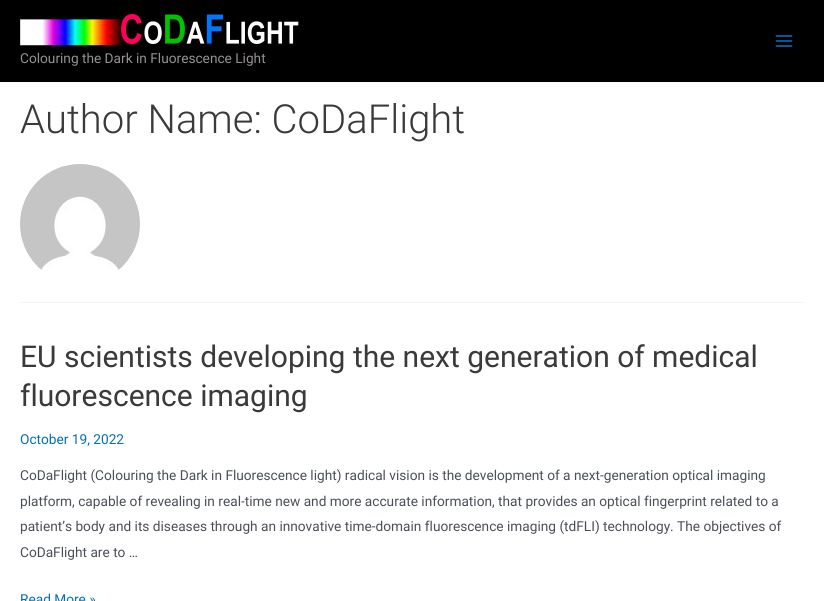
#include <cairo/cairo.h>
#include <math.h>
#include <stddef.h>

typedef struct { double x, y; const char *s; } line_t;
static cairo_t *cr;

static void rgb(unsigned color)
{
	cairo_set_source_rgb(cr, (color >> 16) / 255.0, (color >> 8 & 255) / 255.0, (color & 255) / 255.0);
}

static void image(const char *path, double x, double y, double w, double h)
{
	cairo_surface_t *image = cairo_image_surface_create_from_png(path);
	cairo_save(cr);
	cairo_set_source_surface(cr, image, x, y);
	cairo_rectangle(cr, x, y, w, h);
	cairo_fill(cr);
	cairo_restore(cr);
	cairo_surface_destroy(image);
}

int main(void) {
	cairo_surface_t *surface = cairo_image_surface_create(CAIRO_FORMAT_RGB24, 824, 601);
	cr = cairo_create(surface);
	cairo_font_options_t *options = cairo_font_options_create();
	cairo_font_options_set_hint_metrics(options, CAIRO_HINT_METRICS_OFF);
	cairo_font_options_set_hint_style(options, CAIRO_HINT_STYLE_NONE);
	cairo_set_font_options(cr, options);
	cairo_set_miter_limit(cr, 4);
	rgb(0xffffff);
	cairo_paint(cr);
	rgb(0x000000);
	cairo_rectangle(cr, 0, 0, 824, 82);
	cairo_fill(cr);
	image("img/1.png", 775, 35, 18, 12);
	image("img/2.png", 20, 14, 279, 32);
	rgb(0xf2f5f7);
	cairo_rectangle(cr, 20, 302, 784, 1);
	cairo_fill(cr);
	image("img/3.png", 20, 164, 120, 106);
	cairo_select_font_face(cr, "Roboto", CAIRO_FONT_SLANT_NORMAL, CAIRO_FONT_WEIGHT_NORMAL);
	cairo_set_font_size(cr, 13.68);
	rgb(0x979292);
	cairo_move_to(cr, 20, 63);
	cairo_show_text(cr, "Colouring the Dark in Fluorescence Light");
	cairo_select_font_face(cr, "Roboto Light", CAIRO_FONT_SLANT_NORMAL, CAIRO_FONT_WEIGHT_NORMAL);
	cairo_set_font_size(cr, 40);
	rgb(0x3a3a3a);
	cairo_move_to(cr, 20, 133);
	cairo_show_text(cr, "Author Name: CoDaFlight");
	cairo_select_font_face(cr, "Roboto", CAIRO_FONT_SLANT_NORMAL, CAIRO_FONT_WEIGHT_NORMAL);
	cairo_set_font_size(cr, 30);
	cairo_move_to(cr, 20, 367);
	cairo_show_text(cr, "EU scientists developing the next generation of medical");
	cairo_move_to(cr, 20, 406);
	cairo_show_text(cr, "fluorescence imaging");
	cairo_set_font_size(cr, 13.68);
	rgb(0x0170b9);
	cairo_move_to(cr, 20, 444);
	cairo_show_text(cr, "October 19, 2022");
	rgb(0x4b4f58);
	{
		static const line_t items[] = {
			{20, 480, "CoDaFlight (Colouring the Dark in Fluorescence light) radical vision is the development of a next-generation optical imaging"},
			{20, 506, "platform, capable of revealing in real-time new and more accurate information, that provides an optical fingerprint related to a"},
			{20, 531, "patient’s body and its diseases through an innovative time-domain fluorescence imaging (tdFLI) technology. The objectives of"},
			{20, 557, "CoDaFlight are to …"},
		};
		for (size_t i = 0; i < sizeof items / sizeof *items; i++) {
			cairo_move_to(cr, items[i].x, items[i].y);
			cairo_show_text(cr, items[i].s);
		}
	}
	rgb(0x0170b9);
	cairo_move_to(cr, 20, 604);
	cairo_show_text(cr, "Read More »");
	cairo_surface_write_to_png(surface, "page.png");
	cairo_font_options_destroy(options);
	cairo_destroy(cr);
	cairo_surface_destroy(surface);
	return 0;
}
